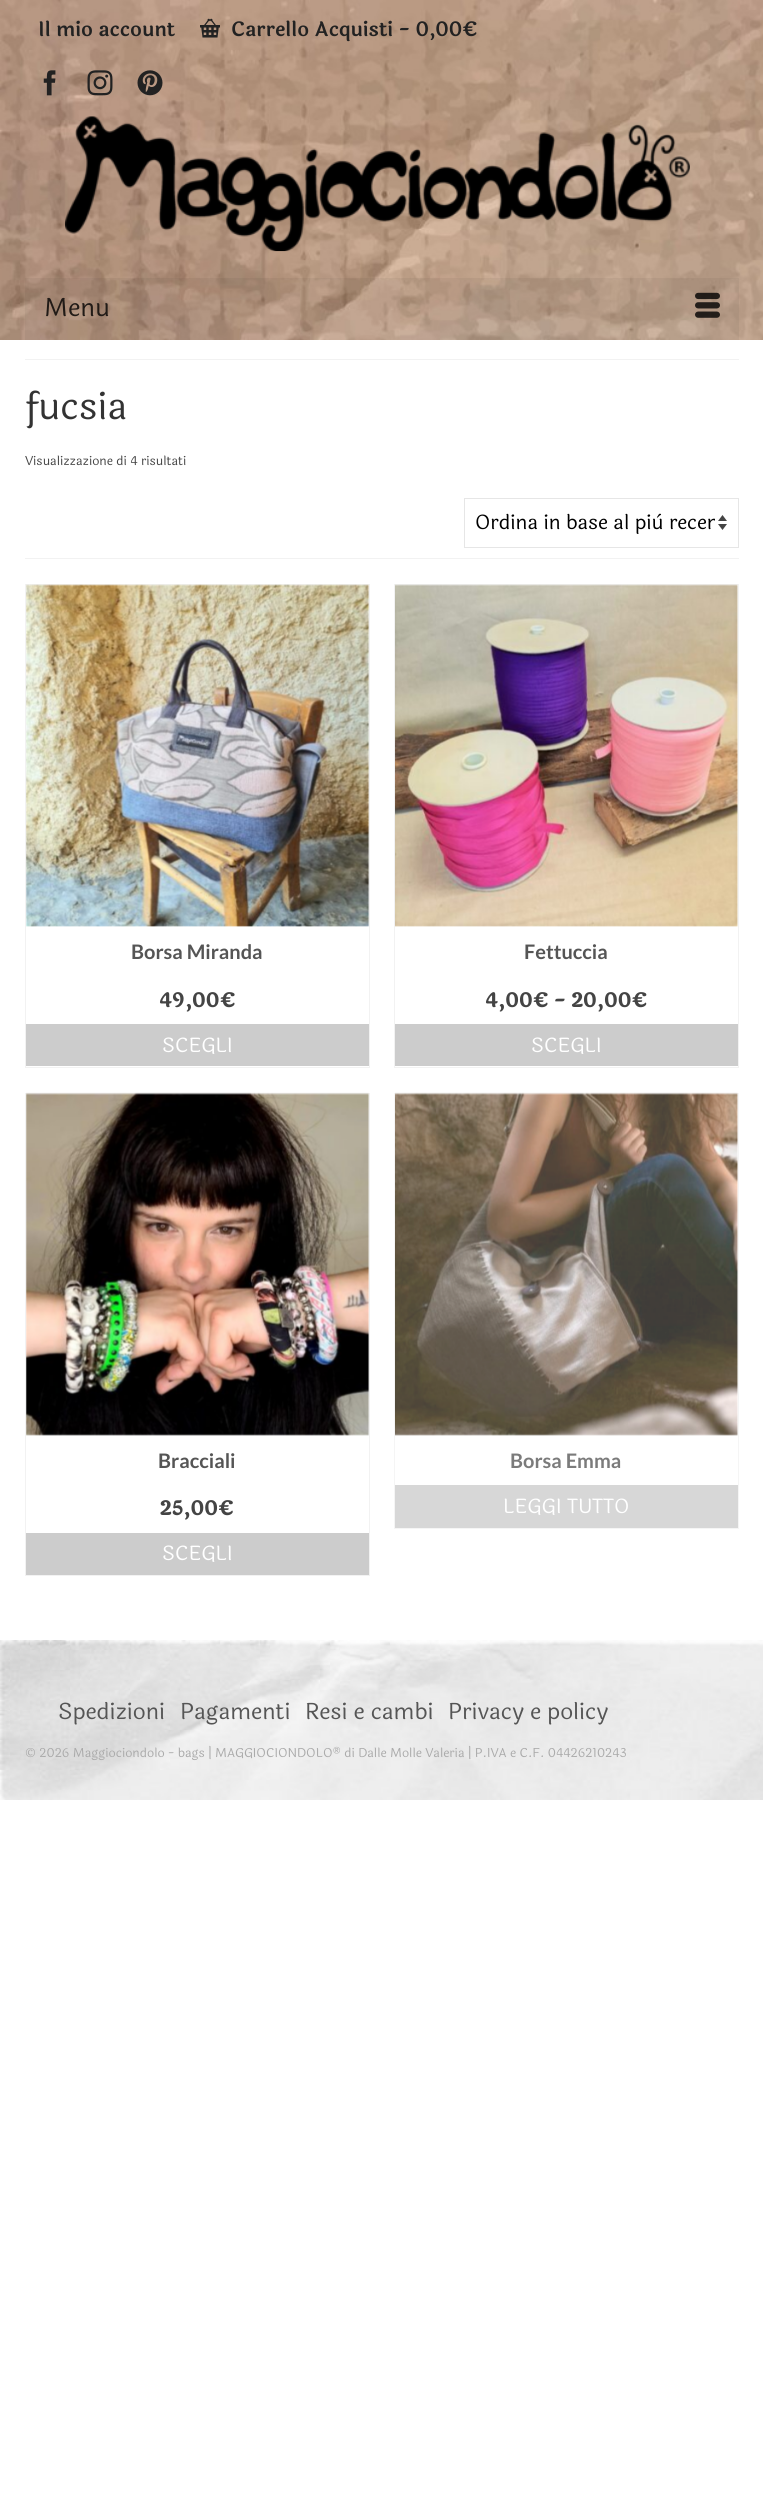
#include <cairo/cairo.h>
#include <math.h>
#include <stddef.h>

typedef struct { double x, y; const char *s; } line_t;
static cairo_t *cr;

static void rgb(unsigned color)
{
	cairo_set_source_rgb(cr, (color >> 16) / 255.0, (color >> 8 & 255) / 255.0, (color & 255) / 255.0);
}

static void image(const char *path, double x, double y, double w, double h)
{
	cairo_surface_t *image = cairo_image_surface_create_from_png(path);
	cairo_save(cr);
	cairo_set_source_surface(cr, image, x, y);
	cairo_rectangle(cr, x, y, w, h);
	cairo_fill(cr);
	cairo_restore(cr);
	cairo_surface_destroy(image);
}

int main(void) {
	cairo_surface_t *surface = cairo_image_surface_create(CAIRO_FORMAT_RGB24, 763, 2510);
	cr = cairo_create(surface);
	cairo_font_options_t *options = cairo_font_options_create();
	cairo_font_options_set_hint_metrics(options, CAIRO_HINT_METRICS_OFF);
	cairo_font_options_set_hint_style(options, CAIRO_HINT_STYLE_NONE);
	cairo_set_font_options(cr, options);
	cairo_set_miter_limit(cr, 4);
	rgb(0xffffff);
	cairo_paint(cr);
	image("img/1.png", 0, 0, 763, 340);
	image("img/2.png", 200, 18, 20, 20);
	image("img/3.png", 43, 70, 13, 26);
	image("img/4.png", 87, 70, 26, 26);
	image("img/5.png", 137, 70, 26, 26);
	image("img/6.png", 65, 116, 625, 136);
	cairo_set_source_rgba(cr, 0, 0, 0, 0.05);
	cairo_rectangle(cr, 25, 278, 714, 62);
	cairo_fill(cr);
	image("img/7.png", 695, 292, 25, 26);
	rgb(0xf2f2f2);
	cairo_rectangle(cr, 25, 359, 714, 1);
	cairo_fill(cr);
	cairo_rectangle(cr, 25, 558, 714, 1);
	cairo_fill(cr);
	rgb(0x444444);
	cairo_new_path(cr);
	cairo_move_to(cr, 718, 521);
	cairo_line_to(cr, 722.5, 515);
	cairo_line_to(cr, 727, 521);
	cairo_close_path(cr);
	cairo_move_to(cr, 727, 524);
	cairo_line_to(cr, 722.5, 530);
	cairo_line_to(cr, 718, 524);
	cairo_close_path(cr);
	cairo_fill(cr);
	cairo_rectangle(cr, 464.5, 498.5, 274, 49);
	rgb(0xe6e6e6);
	cairo_set_line_width(cr, 1);
	cairo_stroke(cr);
	cairo_rectangle(cr, 25.5, 584.5, 344, 483);
	rgb(0xf2f2f2);
	cairo_stroke(cr);
	image("img/8.png", 26, 584, 344, 343);
	rgb(0xcccccc);
	cairo_rectangle(cr, 26, 1024, 343, 42);
	cairo_fill(cr);
	cairo_rectangle(cr, 394.5, 584.5, 344, 483);
	rgb(0xf2f2f2);
	cairo_stroke(cr);
	image("img/9.png", 395, 584, 343, 343);
	rgb(0xcccccc);
	cairo_rectangle(cr, 395, 1024, 343, 42);
	cairo_fill(cr);
	cairo_rectangle(cr, 25.5, 1093.5, 344, 482);
	rgb(0xf2f2f2);
	cairo_stroke(cr);
	image("img/10.png", 26, 1092, 344, 344);
	rgb(0xcccccc);
	cairo_rectangle(cr, 26, 1533, 343, 42);
	cairo_fill(cr);
	cairo_rectangle(cr, 394.5, 1093.5, 344, 435);
	rgb(0xf5f5f5);
	cairo_stroke(cr);
	image("img/11.png", 395, 1092, 343, 344);
	rgb(0xd7d7d7);
	cairo_rectangle(cr, 395, 1485, 343, 43);
	cairo_fill(cr);
	image("img/12.png", 0, 1640, 763, 160);
	cairo_select_font_face(cr, "Laila SemiBold", CAIRO_FONT_SLANT_NORMAL, CAIRO_FONT_WEIGHT_NORMAL);
	cairo_set_font_size(cr, 20);
	rgb(0x222222);
	cairo_move_to(cr, 38, 36);
	cairo_show_text(cr, "Il mio account");
	cairo_move_to(cr, 231, 36);
	cairo_show_text(cr, "Carrello Acquisti - 0,00€");
	cairo_select_font_face(cr, "Laila", CAIRO_FONT_SLANT_NORMAL, CAIRO_FONT_WEIGHT_NORMAL);
	cairo_set_font_size(cr, 25);
	rgb(0x211b17);
	cairo_move_to(cr, 44, 316);
	cairo_show_text(cr, "Menu");
	cairo_set_font_size(cr, 37.5);
	rgb(0x333333);
	cairo_move_to(cr, 25, 419);
	cairo_show_text(cr, "fucsia");
	cairo_set_font_size(cr, 12.5);
	rgb(0x444444);
	cairo_move_to(cr, 25, 465);
	cairo_show_text(cr, "Visualizzazione di 4 risultati");
	cairo_save(cr);
	cairo_rectangle(cr, 475, 510, 240, 24);
	cairo_clip(cr);
	cairo_set_font_size(cr, 20);
	rgb(0x000000);
	cairo_move_to(cr, 475, 529);
	cairo_show_text(cr, "Ordina in base al più recen");
	cairo_restore(cr);
	cairo_select_font_face(cr, "Lato", CAIRO_FONT_SLANT_NORMAL, CAIRO_FONT_WEIGHT_BOLD);
	cairo_set_font_size(cr, 20);
	rgb(0x555555);
	cairo_move_to(cr, 131, 959);
	cairo_show_text(cr, "Borsa Miranda");
	cairo_select_font_face(cr, "Laila", CAIRO_FONT_SLANT_NORMAL, CAIRO_FONT_WEIGHT_BOLD);
	rgb(0x444444);
	cairo_move_to(cr, 159, 1007);
	cairo_show_text(cr, "49,00€");
	cairo_select_font_face(cr, "Laila", CAIRO_FONT_SLANT_NORMAL, CAIRO_FONT_WEIGHT_NORMAL);
	rgb(0xffffff);
	cairo_move_to(cr, 162, 1052);
	cairo_show_text(cr, "SCEGLI");
	cairo_select_font_face(cr, "Lato", CAIRO_FONT_SLANT_NORMAL, CAIRO_FONT_WEIGHT_BOLD);
	rgb(0x555555);
	cairo_move_to(cr, 524, 959);
	cairo_show_text(cr, "Fettuccia");
	cairo_select_font_face(cr, "Laila", CAIRO_FONT_SLANT_NORMAL, CAIRO_FONT_WEIGHT_BOLD);
	rgb(0x444444);
	cairo_move_to(cr, 485, 1007);
	cairo_show_text(cr, "4,00€ - 20,00€");
	cairo_select_font_face(cr, "Laila", CAIRO_FONT_SLANT_NORMAL, CAIRO_FONT_WEIGHT_NORMAL);
	rgb(0xffffff);
	cairo_move_to(cr, 531, 1052);
	cairo_show_text(cr, "SCEGLI");
	cairo_select_font_face(cr, "Lato", CAIRO_FONT_SLANT_NORMAL, CAIRO_FONT_WEIGHT_BOLD);
	rgb(0x555555);
	cairo_move_to(cr, 158, 1468);
	cairo_show_text(cr, "Bracciali");
	cairo_select_font_face(cr, "Laila", CAIRO_FONT_SLANT_NORMAL, CAIRO_FONT_WEIGHT_BOLD);
	rgb(0x444444);
	cairo_move_to(cr, 160, 1515);
	cairo_show_text(cr, "25,00€");
	cairo_select_font_face(cr, "Laila", CAIRO_FONT_SLANT_NORMAL, CAIRO_FONT_WEIGHT_NORMAL);
	rgb(0xffffff);
	cairo_move_to(cr, 162, 1560);
	cairo_show_text(cr, "SCEGLI");
	cairo_select_font_face(cr, "Lato", CAIRO_FONT_SLANT_NORMAL, CAIRO_FONT_WEIGHT_BOLD);
	rgb(0x7b7b7b);
	cairo_move_to(cr, 510, 1468);
	cairo_show_text(cr, "Borsa Emma");
	cairo_select_font_face(cr, "Laila", CAIRO_FONT_SLANT_NORMAL, CAIRO_FONT_WEIGHT_NORMAL);
	rgb(0xffffff);
	cairo_move_to(cr, 503, 1513);
	cairo_show_text(cr, "LEGGI TUTTO");
	cairo_set_font_size(cr, 22.5);
	rgb(0x555555);
	{
		static const line_t items[] = {
			{58, 1719, "Spedizioni"},
			{180, 1719, "Pagamenti"},
			{305, 1719, "Resi e cambi"},
			{448, 1719, "Privacy e policy"},
		};
		for (size_t i = 0; i < sizeof items / sizeof *items; i++) {
			cairo_move_to(cr, items[i].x, items[i].y);
			cairo_show_text(cr, items[i].s);
		}
	}
	cairo_set_font_size(cr, 12.5);
	rgb(0xaaaaaa);
	cairo_move_to(cr, 25, 1757);
	cairo_show_text(cr, "© 2026 Maggiociondolo - bags | MAGGIOCIONDOLO® di Dalle Molle Valeria | P.IVA e C.F. 04426210243");
	cairo_surface_write_to_png(surface, "page.png");
	cairo_font_options_destroy(options);
	cairo_destroy(cr);
	cairo_surface_destroy(surface);
	return 0;
}
